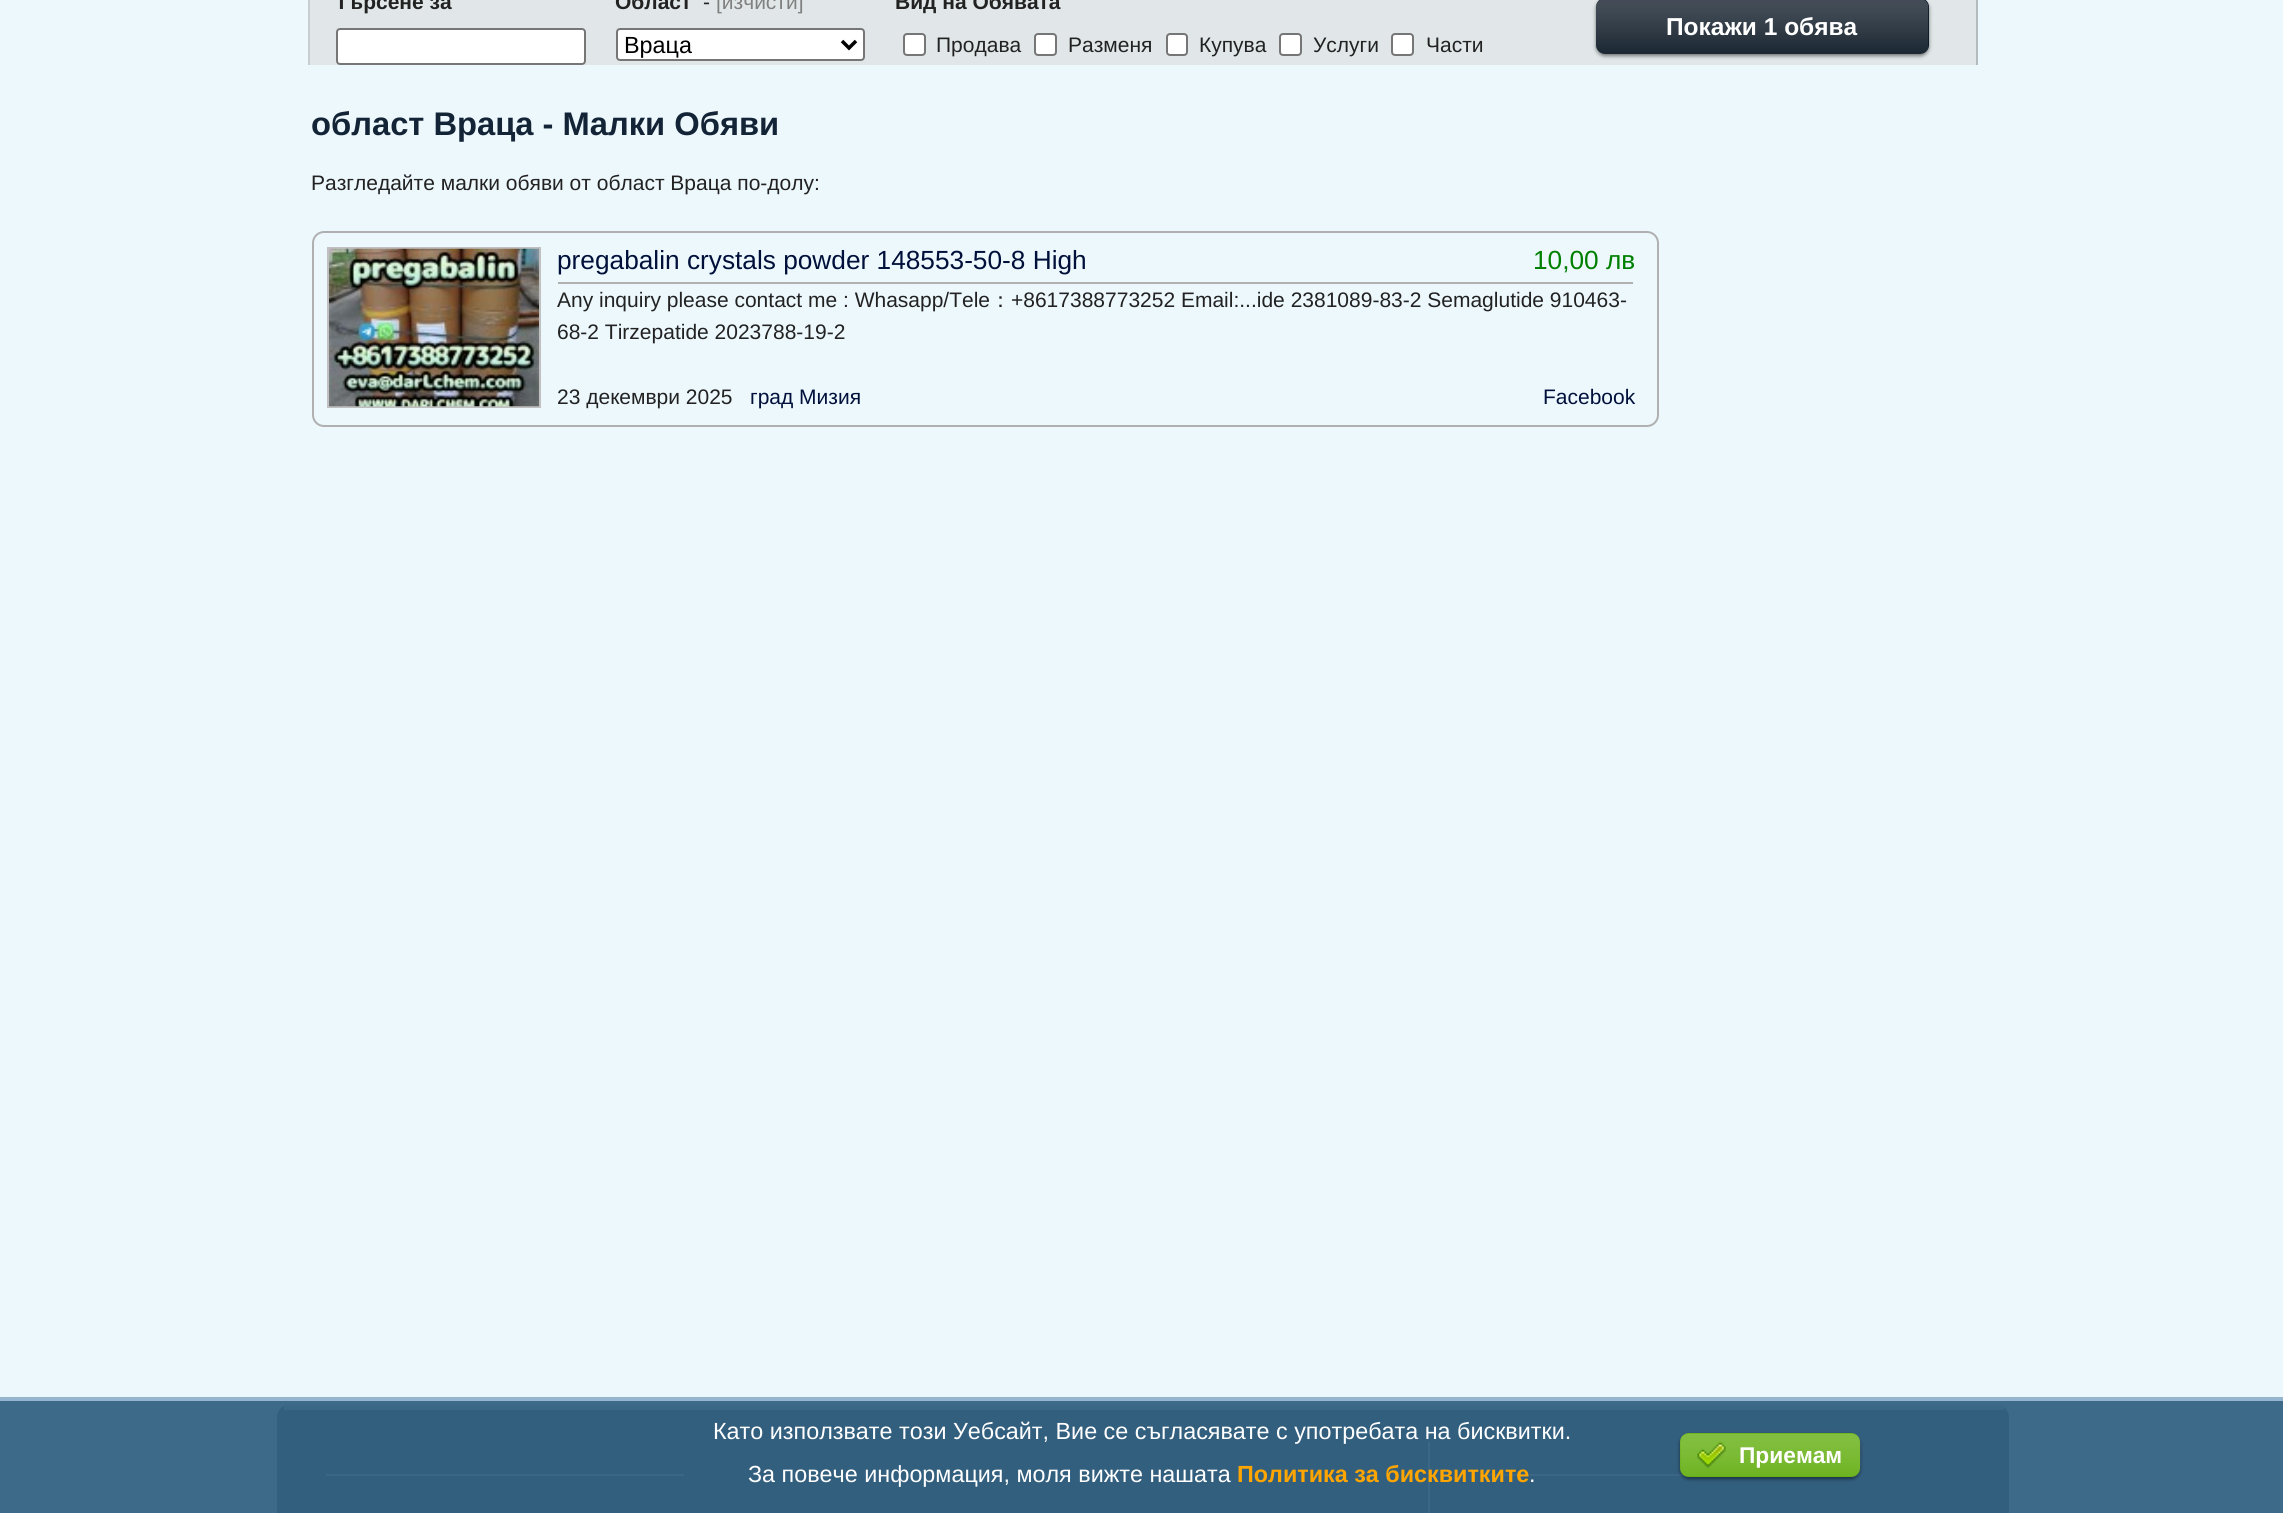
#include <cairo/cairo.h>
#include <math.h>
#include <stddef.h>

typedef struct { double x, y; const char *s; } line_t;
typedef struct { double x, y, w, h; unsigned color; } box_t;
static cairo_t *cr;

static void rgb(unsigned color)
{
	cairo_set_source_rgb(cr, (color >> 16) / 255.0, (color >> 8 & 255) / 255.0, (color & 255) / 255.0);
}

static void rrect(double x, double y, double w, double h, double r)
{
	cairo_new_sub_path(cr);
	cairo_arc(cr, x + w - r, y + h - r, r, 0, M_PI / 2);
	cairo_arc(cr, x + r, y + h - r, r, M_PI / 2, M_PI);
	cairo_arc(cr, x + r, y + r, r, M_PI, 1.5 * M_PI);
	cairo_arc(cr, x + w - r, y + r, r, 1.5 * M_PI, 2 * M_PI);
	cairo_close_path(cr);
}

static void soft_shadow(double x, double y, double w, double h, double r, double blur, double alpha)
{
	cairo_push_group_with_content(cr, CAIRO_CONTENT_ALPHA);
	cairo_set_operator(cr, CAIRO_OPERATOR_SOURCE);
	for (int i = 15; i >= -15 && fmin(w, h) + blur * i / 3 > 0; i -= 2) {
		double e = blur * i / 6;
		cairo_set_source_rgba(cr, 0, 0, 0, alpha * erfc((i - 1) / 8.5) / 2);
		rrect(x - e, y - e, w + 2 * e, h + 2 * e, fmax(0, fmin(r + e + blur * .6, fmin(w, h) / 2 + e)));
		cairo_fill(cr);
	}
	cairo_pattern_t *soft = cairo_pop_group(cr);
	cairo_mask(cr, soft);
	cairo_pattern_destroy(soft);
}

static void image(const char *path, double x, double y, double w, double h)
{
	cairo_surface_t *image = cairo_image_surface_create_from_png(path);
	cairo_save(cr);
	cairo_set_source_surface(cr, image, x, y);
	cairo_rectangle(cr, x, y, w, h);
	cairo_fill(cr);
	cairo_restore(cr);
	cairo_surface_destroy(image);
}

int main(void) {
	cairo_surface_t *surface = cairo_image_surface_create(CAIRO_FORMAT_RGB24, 2283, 1513);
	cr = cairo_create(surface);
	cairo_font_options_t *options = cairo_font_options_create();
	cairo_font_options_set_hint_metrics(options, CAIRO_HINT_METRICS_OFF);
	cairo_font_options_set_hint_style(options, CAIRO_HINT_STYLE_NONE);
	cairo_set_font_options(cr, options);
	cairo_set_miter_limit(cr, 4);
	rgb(0xedf8fd);
	cairo_paint(cr);
	rgb(0x3d6a89);
	cairo_rectangle(cr, 0, 1401, 2283, 112);
	cairo_fill(cr);
	rgb(0xe1e7e9);
	cairo_rectangle(cr, 310, 0, 1666, 65);
	cairo_fill(cr);
	rgb(0xb4bbbd);
	cairo_new_path(cr);
	cairo_move_to(cr, 1976, 65);
	cairo_line_to(cr, 1976, -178);
	cairo_curve_to(cr, 1976, -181, 1975, -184, 1973, -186);
	cairo_line_to(cr, 1974, -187);
	cairo_curve_to(cr, 1976, -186, 1977, -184, 1978, -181);
	cairo_line_to(cr, 1978, 65);
	cairo_close_path(cr);
	cairo_fill(cr);
	rgb(0xc9ced1);
	cairo_new_path(cr);
	cairo_move_to(cr, 308, 65);
	cairo_line_to(cr, 310, 65);
	cairo_line_to(cr, 310, -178);
	cairo_curve_to(cr, 310, -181, 311, -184, 313, -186);
	cairo_line_to(cr, 311, -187);
	cairo_curve_to(cr, 309, -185, 308, -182, 308, -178);
	cairo_close_path(cr);
	cairo_fill(cr);
	rgb(0xffffff);
	rrect(337, 29, 248, 35, 3);
	cairo_fill_preserve(cr);
	rgb(0x767676);
	cairo_stroke(cr);
	rgb(0xffffff);
	rrect(617, 29, 247, 31, 3);
	cairo_fill_preserve(cr);
	rgb(0x767676);
	cairo_stroke(cr);
	cairo_new_path(cr);
	cairo_move_to(cr, 842, 41);
	cairo_line_to(cr, 849, 48);
	cairo_line_to(cr, 856, 41);
	rgb(0x000000);
	cairo_set_line_width(cr, 3.5);
	cairo_stroke(cr);
	rgb(0xffffff);
	rrect(904, 34, 21, 21, 3);
	cairo_fill_preserve(cr);
	rgb(0x767676);
	cairo_set_line_width(cr, 2);
	cairo_stroke(cr);
	rgb(0xffffff);
	rrect(1035, 34, 21, 21, 3);
	cairo_fill_preserve(cr);
	rgb(0x767676);
	cairo_stroke(cr);
	rgb(0xffffff);
	rrect(1167, 34, 20, 21, 3);
	cairo_fill_preserve(cr);
	rgb(0x767676);
	cairo_stroke(cr);
	rgb(0xffffff);
	rrect(1280, 34, 21, 21, 3);
	cairo_fill_preserve(cr);
	rgb(0x767676);
	cairo_stroke(cr);
	rgb(0xffffff);
	rrect(1392, 34, 21, 21, 3);
	cairo_fill_preserve(cr);
	rgb(0x767676);
	cairo_stroke(cr);
	rgb(0x000000);
	soft_shadow(1596, 0, 333, 56, 9, 2, 0.5);
	rgb(0x061320);
	rrect(1596, -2, 333, 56, 9);
	cairo_fill(cr);
	image("img/1.png", 1596, 0, 333, 54);
	rrect(313, 232, 1345, 194, 11);
	rgb(0xb0b0b0);
	cairo_stroke(cr);
	cairo_rectangle(cr, 328, 248, 212, 159);
	rgb(0xc0c0c0);
	cairo_stroke(cr);
	image("img/2.png", 329, 248, 210, 159);
	rgb(0xb0b0b0);
	cairo_rectangle(cr, 558, 282, 1075, 2);
	cairo_fill(cr);
	rgb(0x335f7f);
	cairo_new_path(cr);
	cairo_move_to(cr, 289, 1405);
	cairo_line_to(cr, 1997, 1405);
	cairo_curve_to(cr, 2003.5, 1405, 2009, 1410.5, 2009, 1417);
	cairo_line_to(cr, 2009, 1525);
	cairo_line_to(cr, 277, 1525);
	cairo_line_to(cr, 277, 1417);
	cairo_curve_to(cr, 277, 1410.5, 282.5, 1405, 289, 1405);
	cairo_close_path(cr);
	cairo_fill(cr);
	{
		static const box_t items[] = {
			{284, 1405, 1720, 5, 0x3b6787},
			{1428, 1442, 2, 71, 0x3b6787},
			{326, 1474, 358, 2, 0x3b6786},
			{1482, 1474, 203, 2, 0x3b6786},
			{0, 1397, 2283, 4, 0x95b6ce},
		};
		for (size_t i = 0; i < sizeof items / sizeof *items; i++) {
			rgb(items[i].color);
			cairo_rectangle(cr, items[i].x, items[i].y, items[i].w, items[i].h);
			cairo_fill(cr);
		}
	}
	rgb(0x000000);
	soft_shadow(1680, 1435, 180, 44, 9, 2, 0.5);
	rgb(0x59a901);
	rrect(1680, 1433, 180, 44, 9);
	cairo_fill(cr);
	image("img/3.png", 1680, 1433, 181, 44);
	image("img/4.png", 1697, 1442, 29, 26);
	cairo_select_font_face(cr, "Liberation Sans", CAIRO_FONT_SLANT_NORMAL, CAIRO_FONT_WEIGHT_BOLD);
	cairo_set_font_size(cr, 21);
	rgb(0x222222);
	cairo_move_to(cr, 335, 9);
	cairo_show_text(cr, "Търсене за");
	cairo_move_to(cr, 615, 9);
	cairo_show_text(cr, "Област");
	cairo_select_font_face(cr, "Liberation Sans", CAIRO_FONT_SLANT_NORMAL, CAIRO_FONT_WEIGHT_NORMAL);
	cairo_move_to(cr, 703, 9);
	cairo_show_text(cr, "-");
	rgb(0x808080);
	cairo_move_to(cr, 716, 9);
	cairo_show_text(cr, "[изчисти]");
	cairo_set_font_size(cr, 23.35);
	rgb(0x000000);
	cairo_move_to(cr, 624, 53);
	cairo_show_text(cr, "Враца");
	cairo_select_font_face(cr, "Liberation Sans", CAIRO_FONT_SLANT_NORMAL, CAIRO_FONT_WEIGHT_BOLD);
	cairo_set_font_size(cr, 21);
	rgb(0x222222);
	cairo_move_to(cr, 895, 9);
	cairo_show_text(cr, "Вид на Обявата");
	cairo_select_font_face(cr, "Liberation Sans", CAIRO_FONT_SLANT_NORMAL, CAIRO_FONT_WEIGHT_NORMAL);
	{
		static const line_t items[] = {
			{936, 52, "Продава"},
			{1068, 52, "Разменя"},
			{1199, 52, "Купува"},
			{1313, 52, "Услуги"},
			{1426, 52, "Части"},
		};
		for (size_t i = 0; i < sizeof items / sizeof *items; i++) {
			cairo_move_to(cr, items[i].x, items[i].y);
			cairo_show_text(cr, items[i].s);
		}
	}
	cairo_select_font_face(cr, "Liberation Sans", CAIRO_FONT_SLANT_NORMAL, CAIRO_FONT_WEIGHT_BOLD);
	cairo_set_font_size(cr, 24.5);
	rgb(0xffffff);
	cairo_move_to(cr, 1666, 35);
	cairo_show_text(cr, "Покажи 1 обява");
	cairo_set_font_size(cr, 32.7);
	rgb(0x132436);
	cairo_move_to(cr, 311, 135);
	cairo_show_text(cr, "област Враца - Малки Обяви");
	cairo_select_font_face(cr, "Liberation Sans", CAIRO_FONT_SLANT_NORMAL, CAIRO_FONT_WEIGHT_NORMAL);
	cairo_set_font_size(cr, 21);
	rgb(0x222222);
	cairo_move_to(cr, 311, 190);
	cairo_show_text(cr, "Разгледайте малки обяви от област Враца по-долу:");
	cairo_set_font_size(cr, 26.25);
	rgb(0x00103a);
	cairo_move_to(cr, 557, 269);
	cairo_show_text(cr, "pregabalin crystals powder 148553-50-8 High");
	rgb(0x008000);
	cairo_move_to(cr, 1533, 269);
	cairo_show_text(cr, "10,00 лв");
	cairo_set_font_size(cr, 21);
	rgb(0x222222);
	cairo_move_to(cr, 557, 307);
	cairo_show_text(cr, "Any inquiry please contact me : Whasapp/Tele");
	cairo_select_font_face(cr, "WenQuanYi Zen Hei Medium", CAIRO_FONT_SLANT_NORMAL, CAIRO_FONT_WEIGHT_NORMAL);
	cairo_move_to(cr, 990, 307);
	cairo_show_text(cr, "：");
	cairo_select_font_face(cr, "Liberation Sans", CAIRO_FONT_SLANT_NORMAL, CAIRO_FONT_WEIGHT_NORMAL);
	{
		static const line_t items[] = {
			{1011, 307, "+8617388773252 Email:...ide 2381089-83-2 Semaglutide 910463-"},
			{557, 339, "68-2 Tirzepatide 2023788-19-2"},
			{557, 404, "23 декември 2025"},
		};
		for (size_t i = 0; i < sizeof items / sizeof *items; i++) {
			cairo_move_to(cr, items[i].x, items[i].y);
			cairo_show_text(cr, items[i].s);
		}
	}
	rgb(0x00103a);
	cairo_move_to(cr, 750, 404);
	cairo_show_text(cr, "град Мизия");
	cairo_move_to(cr, 1543, 404);
	cairo_show_text(cr, "Facebook");
	cairo_set_font_size(cr, 23.35);
	rgb(0xffffff);
	cairo_move_to(cr, 713, 1439);
	cairo_show_text(cr, "Като използвате този Уебсайт, Вие се съгласявате с употребата на бисквитки.");
	cairo_select_font_face(cr, "Liberation Sans", CAIRO_FONT_SLANT_NORMAL, CAIRO_FONT_WEIGHT_BOLD);
	cairo_set_font_size(cr, 22.75);
	cairo_move_to(cr, 1739, 1463);
	cairo_show_text(cr, "Приемам");
	cairo_select_font_face(cr, "Liberation Sans", CAIRO_FONT_SLANT_NORMAL, CAIRO_FONT_WEIGHT_NORMAL);
	cairo_set_font_size(cr, 23.35);
	cairo_move_to(cr, 748, 1482);
	cairo_show_text(cr, "За повече информация, моля вижте нашата");
	cairo_select_font_face(cr, "Liberation Sans", CAIRO_FONT_SLANT_NORMAL, CAIRO_FONT_WEIGHT_BOLD);
	rgb(0xffa500);
	cairo_move_to(cr, 1237, 1482);
	cairo_show_text(cr, "Политика за бисквитките");
	cairo_select_font_face(cr, "Liberation Sans", CAIRO_FONT_SLANT_NORMAL, CAIRO_FONT_WEIGHT_NORMAL);
	rgb(0xffffff);
	cairo_move_to(cr, 1529, 1482);
	cairo_show_text(cr, ".");
	cairo_surface_write_to_png(surface, "page.png");
	cairo_font_options_destroy(options);
	cairo_destroy(cr);
	cairo_surface_destroy(surface);
	return 0;
}
